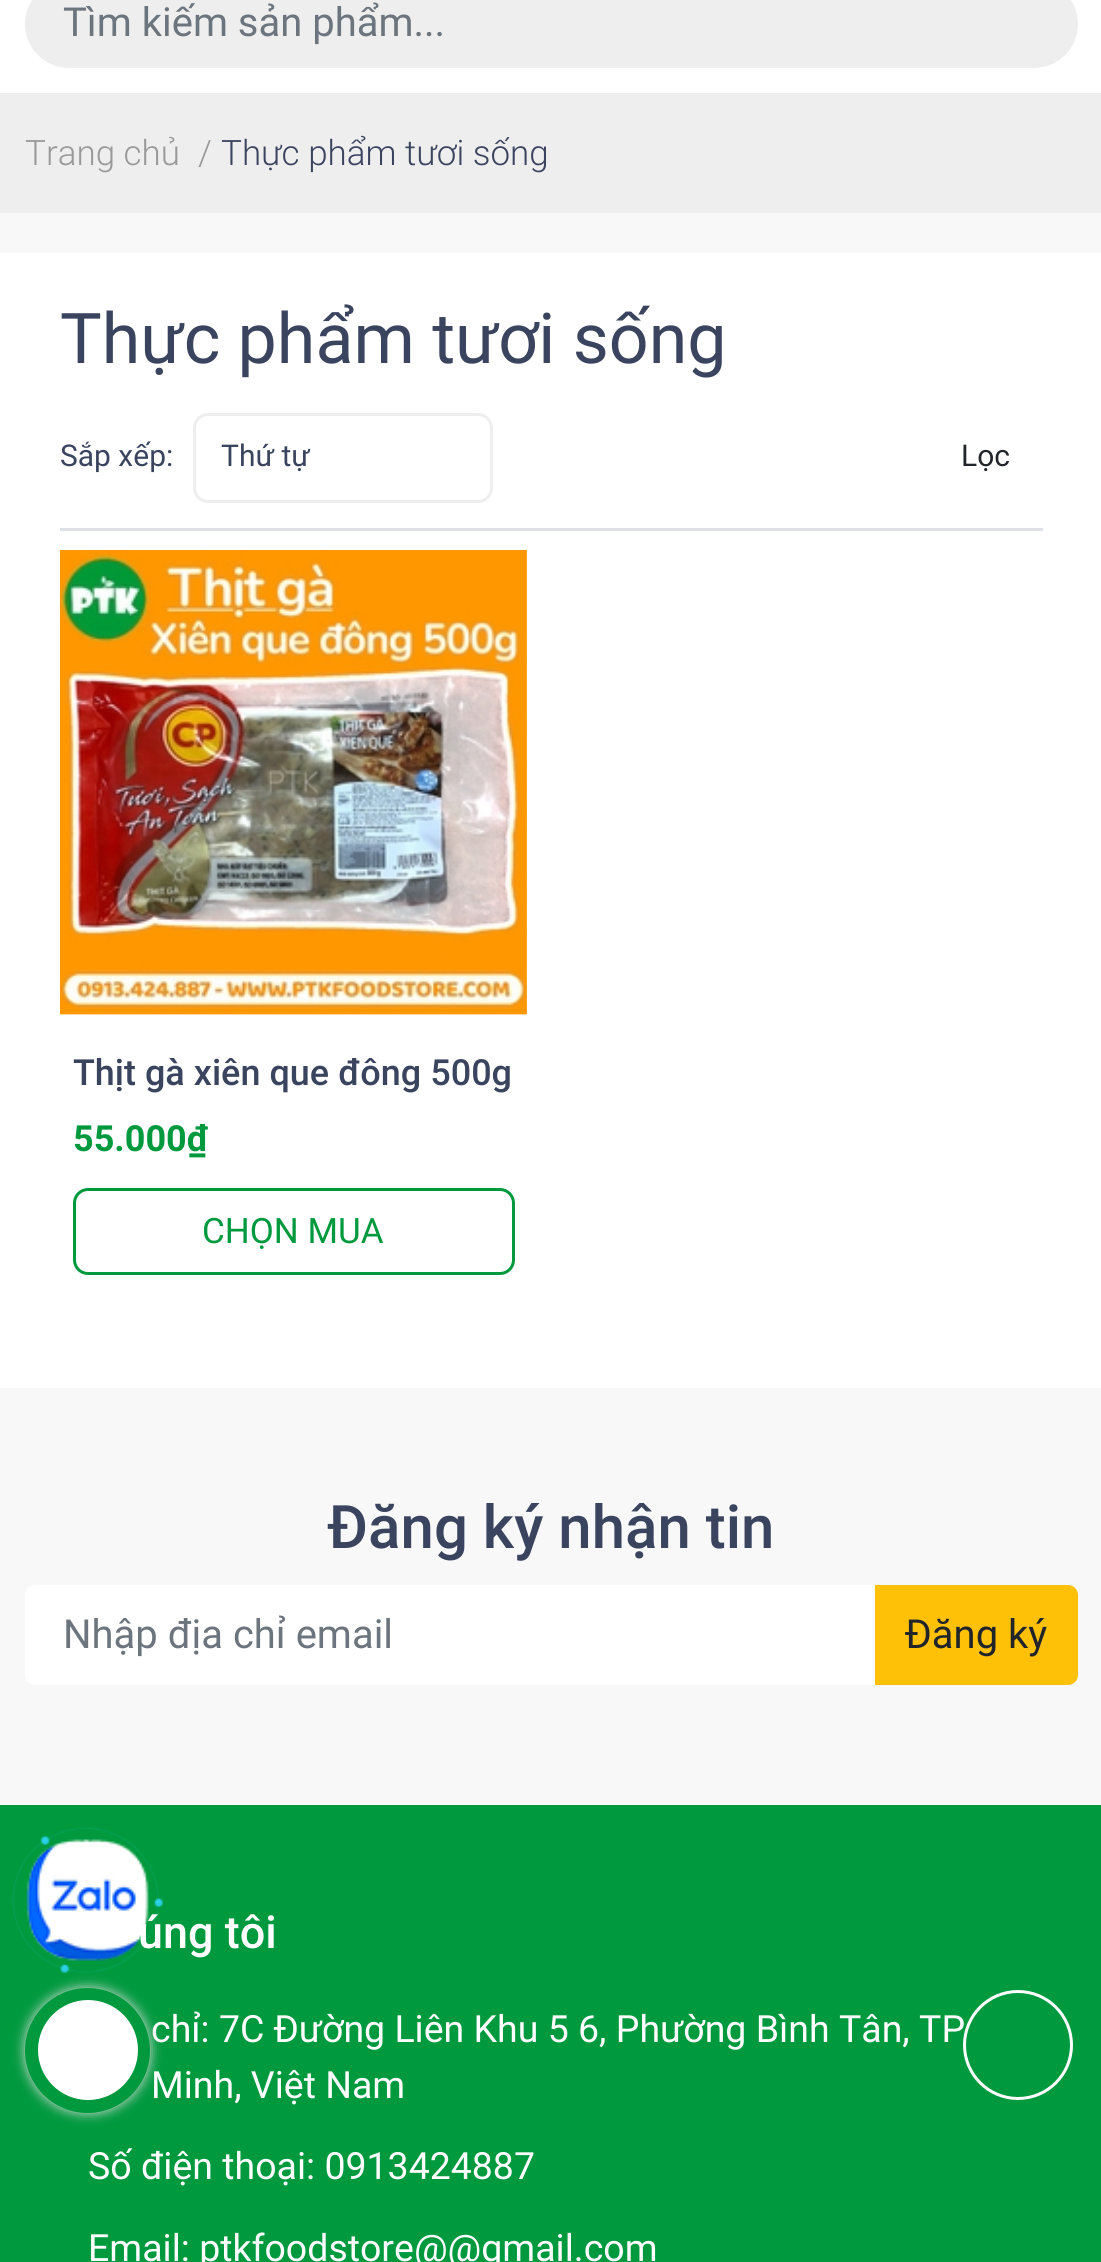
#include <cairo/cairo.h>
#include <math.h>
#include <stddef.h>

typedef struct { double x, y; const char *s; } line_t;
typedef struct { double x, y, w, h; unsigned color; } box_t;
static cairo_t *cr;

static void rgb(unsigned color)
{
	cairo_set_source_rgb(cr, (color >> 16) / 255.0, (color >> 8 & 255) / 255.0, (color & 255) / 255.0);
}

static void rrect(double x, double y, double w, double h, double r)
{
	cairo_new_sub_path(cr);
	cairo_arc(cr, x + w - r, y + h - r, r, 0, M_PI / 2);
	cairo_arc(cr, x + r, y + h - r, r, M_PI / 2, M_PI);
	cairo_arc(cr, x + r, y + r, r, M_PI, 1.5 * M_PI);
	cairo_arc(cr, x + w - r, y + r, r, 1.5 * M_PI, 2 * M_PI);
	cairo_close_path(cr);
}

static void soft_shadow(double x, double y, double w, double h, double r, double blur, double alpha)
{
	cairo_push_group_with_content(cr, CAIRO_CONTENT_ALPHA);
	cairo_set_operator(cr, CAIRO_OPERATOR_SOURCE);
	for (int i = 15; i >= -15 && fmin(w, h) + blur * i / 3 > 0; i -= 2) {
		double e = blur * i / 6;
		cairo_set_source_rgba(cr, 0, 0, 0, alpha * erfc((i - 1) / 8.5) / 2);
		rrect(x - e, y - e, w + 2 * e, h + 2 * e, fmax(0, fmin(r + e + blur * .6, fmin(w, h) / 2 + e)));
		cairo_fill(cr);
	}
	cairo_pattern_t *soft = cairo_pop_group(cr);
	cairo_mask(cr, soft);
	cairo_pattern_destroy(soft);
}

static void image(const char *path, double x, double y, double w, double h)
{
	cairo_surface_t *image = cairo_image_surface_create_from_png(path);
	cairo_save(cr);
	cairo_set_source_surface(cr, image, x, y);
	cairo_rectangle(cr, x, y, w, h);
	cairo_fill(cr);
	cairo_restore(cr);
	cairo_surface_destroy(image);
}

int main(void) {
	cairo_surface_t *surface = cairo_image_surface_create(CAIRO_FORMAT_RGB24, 1101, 2262);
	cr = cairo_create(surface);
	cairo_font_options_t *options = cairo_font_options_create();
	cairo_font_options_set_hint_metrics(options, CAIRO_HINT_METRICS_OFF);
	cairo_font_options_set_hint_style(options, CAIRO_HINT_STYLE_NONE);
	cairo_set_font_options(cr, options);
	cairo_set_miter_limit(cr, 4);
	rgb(0xf8f8f8);
	cairo_paint(cr);
	rgb(0xffffff);
	cairo_rectangle(cr, 0, 0, 1101, 93);
	cairo_fill(cr);
	rgb(0xeeeeee);
	rrect(25, -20, 1053, 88, 44);
	cairo_fill(cr);
	{
		static const box_t items[] = {
			{0, 93, 1101, 120, 0xeeeeee},
			{0, 253, 1101, 1135, 0xffffff},
			{60, 528, 983, 3, 0xdee2e6},
		};
		for (size_t i = 0; i < sizeof items / sizeof *items; i++) {
			rgb(items[i].color);
			cairo_rectangle(cr, items[i].x, items[i].y, items[i].w, items[i].h);
			cairo_fill(cr);
		}
	}
	rrect(194.5, 414.5, 297, 87, 13.5);
	rgb(0xeeeeee);
	cairo_set_line_width(cr, 3);
	cairo_stroke(cr);
	image("img/1.png", 60, 550, 467, 465);
	rrect(74.5, 1189.5, 439, 84, 13.5);
	rgb(0x00993e);
	cairo_stroke(cr);
	rgb(0xffffff);
	rrect(25, 1585, 1053, 100, 10);
	cairo_fill(cr);
	rgb(0xffc107);
	cairo_new_path(cr);
	cairo_move_to(cr, 875, 1585);
	cairo_line_to(cr, 1068, 1585);
	cairo_curve_to(cr, 1073.5, 1585, 1078, 1589.5, 1078, 1595);
	cairo_line_to(cr, 1078, 1675);
	cairo_curve_to(cr, 1078, 1680.5, 1073.5, 1685, 1068, 1685);
	cairo_line_to(cr, 875, 1685);
	cairo_close_path(cr);
	cairo_fill(cr);
	rgb(0x00993e);
	cairo_rectangle(cr, 0, 1805, 1101, 457);
	cairo_fill(cr);
	cairo_arc(cr, 1018, 2045, 53.5, 0, 2 * M_PI);
	rgb(0xffffff);
	cairo_stroke(cr);
	cairo_select_font_face(cr, "Roboto", CAIRO_FONT_SLANT_NORMAL, CAIRO_FONT_WEIGHT_NORMAL);
	cairo_set_font_size(cr, 40);
	rgb(0x6c757d);
	cairo_move_to(cr, 63, 36);
	cairo_show_text(cr, "Tìm kiếm sản phẩm...");
	cairo_select_font_face(cr, "Roboto Light", CAIRO_FONT_SLANT_NORMAL, CAIRO_FONT_WEIGHT_NORMAL);
	cairo_set_font_size(cr, 35);
	rgb(0x999999);
	cairo_move_to(cr, 25, 165);
	cairo_show_text(cr, "Trang chủ");
	cairo_move_to(cr, 198, 165);
	cairo_show_text(cr, "/");
	rgb(0x3a445e);
	cairo_move_to(cr, 221, 165);
	cairo_show_text(cr, "Thực phẩm tươi sống");
	cairo_select_font_face(cr, "Roboto", CAIRO_FONT_SLANT_NORMAL, CAIRO_FONT_WEIGHT_NORMAL);
	cairo_set_font_size(cr, 70);
	cairo_move_to(cr, 60, 363);
	cairo_show_text(cr, "Thực phẩm tươi sống");
	cairo_set_font_size(cr, 30);
	cairo_move_to(cr, 60, 466);
	cairo_show_text(cr, "Sắp xếp:");
	cairo_move_to(cr, 221, 466);
	cairo_show_text(cr, "Thứ tự");
	rgb(0x212529);
	cairo_move_to(cr, 961, 466);
	cairo_show_text(cr, "Lọc");
	cairo_select_font_face(cr, "Roboto Medium", CAIRO_FONT_SLANT_NORMAL, CAIRO_FONT_WEIGHT_NORMAL);
	cairo_set_font_size(cr, 36);
	rgb(0x3a445e);
	cairo_move_to(cr, 73, 1085);
	cairo_show_text(cr, "Thịt gà xiên que đông 500g");
	cairo_select_font_face(cr, "Roboto", CAIRO_FONT_SLANT_NORMAL, CAIRO_FONT_WEIGHT_BOLD);
	rgb(0x00993e);
	cairo_move_to(cr, 73, 1151);
	cairo_show_text(cr, "55.000₫");
	cairo_select_font_face(cr, "Roboto", CAIRO_FONT_SLANT_NORMAL, CAIRO_FONT_WEIGHT_NORMAL);
	cairo_set_font_size(cr, 35);
	cairo_move_to(cr, 202, 1243);
	cairo_show_text(cr, "CHỌN MUA");
	cairo_select_font_face(cr, "Roboto Medium", CAIRO_FONT_SLANT_NORMAL, CAIRO_FONT_WEIGHT_NORMAL);
	cairo_set_font_size(cr, 60);
	rgb(0x3a445e);
	cairo_move_to(cr, 328, 1548);
	cairo_show_text(cr, "Đăng ký nhận tin");
	cairo_select_font_face(cr, "Roboto", CAIRO_FONT_SLANT_NORMAL, CAIRO_FONT_WEIGHT_NORMAL);
	cairo_set_font_size(cr, 40);
	rgb(0x6c757d);
	cairo_move_to(cr, 63, 1648);
	cairo_show_text(cr, "Nhập địa chỉ email");
	rgb(0x212529);
	cairo_move_to(cr, 905, 1648);
	cairo_show_text(cr, "Đăng ký");
	cairo_select_font_face(cr, "Roboto Medium", CAIRO_FONT_SLANT_NORMAL, CAIRO_FONT_WEIGHT_NORMAL);
	cairo_set_font_size(cr, 45);
	rgb(0xffffff);
	cairo_move_to(cr, 138, 1948);
	cairo_show_text(cr, "úng tôi");
	cairo_select_font_face(cr, "Roboto", CAIRO_FONT_SLANT_NORMAL, CAIRO_FONT_WEIGHT_NORMAL);
	cairo_set_font_size(cr, 37.5);
	{
		static const line_t items[] = {
			{151, 2042, "chỉ: 7C Đường Liên Khu 5 6, Phường Bình Tân, TP"},
			{151, 2098, "Minh, Việt Nam"},
			{88, 2179, "Số điện thoại: 0913424887"},
			{88, 2261, "Email: ptkfoodstore@@gmail.com"},
		};
		for (size_t i = 0; i < sizeof items / sizeof *items; i++) {
			cairo_move_to(cr, items[i].x, items[i].y);
			cairo_show_text(cr, items[i].s);
		}
	}
	image("img/2.png", 12, 1827, 151, 146);
	image("img/3.png", 26, 1839, 123, 122);
	rgb(0xdddddd);
	soft_shadow(25, 1988, 125, 125, 62.5, 6, 1);
	rgb(0x00993e);
	cairo_arc(cr, 87.5, 2050.5, 62.5, 0, 2 * M_PI);
	cairo_fill(cr);
	rgb(0xffffff);
	cairo_arc(cr, 88, 2050, 50, 0, 2 * M_PI);
	cairo_fill(cr);
	cairo_surface_write_to_png(surface, "page.png");
	cairo_font_options_destroy(options);
	cairo_destroy(cr);
	cairo_surface_destroy(surface);
	return 0;
}
